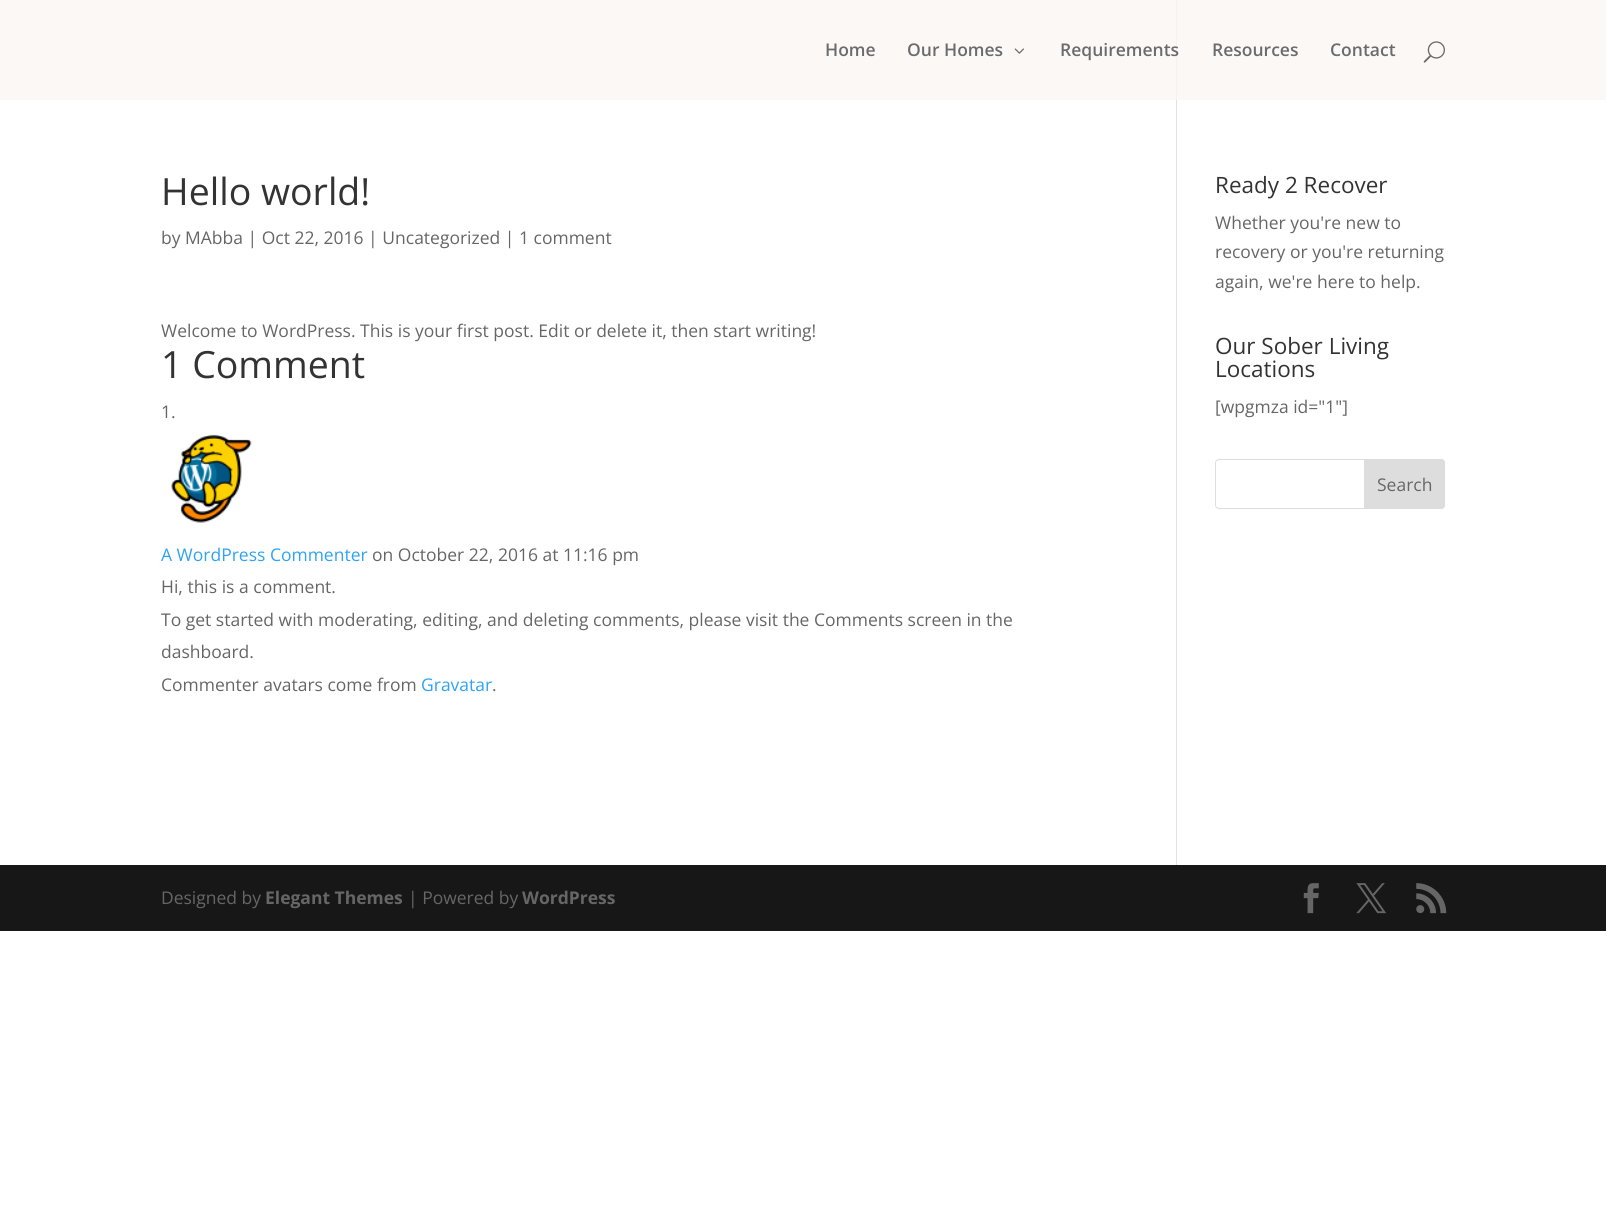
#include <cairo/cairo.h>
#include <math.h>
#include <stddef.h>

typedef struct { double x, y; const char *s; } line_t;
static cairo_t *cr;

static void rgb(unsigned color)
{
	cairo_set_source_rgb(cr, (color >> 16) / 255.0, (color >> 8 & 255) / 255.0, (color & 255) / 255.0);
}

static void rrect(double x, double y, double w, double h, double r)
{
	cairo_new_sub_path(cr);
	cairo_arc(cr, x + w - r, y + h - r, r, 0, M_PI / 2);
	cairo_arc(cr, x + r, y + h - r, r, M_PI / 2, M_PI);
	cairo_arc(cr, x + r, y + r, r, M_PI, 1.5 * M_PI);
	cairo_arc(cr, x + w - r, y + r, r, 1.5 * M_PI, 2 * M_PI);
	cairo_close_path(cr);
}

static void image(const char *path, double x, double y, double w, double h)
{
	cairo_surface_t *image = cairo_image_surface_create_from_png(path);
	cairo_save(cr);
	cairo_set_source_surface(cr, image, x, y);
	cairo_rectangle(cr, x, y, w, h);
	cairo_fill(cr);
	cairo_restore(cr);
	cairo_surface_destroy(image);
}

int main(void) {
	cairo_surface_t *surface = cairo_image_surface_create(CAIRO_FORMAT_RGB24, 1606, 1230);
	cr = cairo_create(surface);
	cairo_font_options_t *options = cairo_font_options_create();
	cairo_font_options_set_hint_metrics(options, CAIRO_HINT_METRICS_OFF);
	cairo_font_options_set_hint_style(options, CAIRO_HINT_STYLE_NONE);
	cairo_set_font_options(cr, options);
	cairo_set_miter_limit(cr, 4);
	rgb(0xffffff);
	cairo_paint(cr);
	rgb(0xfcf8f6);
	cairo_rectangle(cr, 0, 0, 1606, 100);
	cairo_fill(cr);
	image("img/1.png", 1014, 48, 10, 6);
	image("img/2.png", 1423, 41, 22, 22);
	rgb(0xe2e2e2);
	cairo_rectangle(cr, 1176, 100, 1, 765);
	cairo_fill(cr);
	rgb(0xf6f2f0);
	cairo_rectangle(cr, 1176, 0, 1, 100);
	cairo_fill(cr);
	image("img/3.png", 171, 434, 81, 89);
	rrect(1215.5, 459.5, 229, 49, 3.5);
	rgb(0xdddddd);
	cairo_set_line_width(cr, 1);
	cairo_stroke(cr);
	cairo_new_path(cr);
	cairo_move_to(cr, 1364.5, 459.5);
	cairo_line_to(cr, 1441, 459.5);
	cairo_curve_to(cr, 1443, 459.5, 1444.5, 461, 1444.5, 463);
	cairo_line_to(cr, 1444.5, 505);
	cairo_curve_to(cr, 1444.5, 507, 1443, 508.5, 1441, 508.5);
	cairo_line_to(cr, 1364.5, 508.5);
	cairo_close_path(cr);
	cairo_fill_preserve(cr);
	cairo_stroke(cr);
	rgb(0x171717);
	cairo_rectangle(cr, 0, 865, 1606, 66);
	cairo_fill(cr);
	image("img/4.png", 1303, 883, 16, 31);
	image("img/5.png", 1356, 883, 30, 31);
	image("img/6.png", 1416, 883, 31, 31);
	cairo_select_font_face(cr, "Open Sans SemiBold", CAIRO_FONT_SLANT_NORMAL, CAIRO_FONT_WEIGHT_NORMAL);
	cairo_set_font_size(cr, 17.5);
	rgb(0x6c6b6b);
	{
		static const line_t items[] = {
			{825, 56, "Home"},
			{907, 56, "Our Homes"},
			{1060, 56, "Requirements"},
			{1212, 56, "Resources"},
			{1330, 56, "Contact"},
		};
		for (size_t i = 0; i < sizeof items / sizeof *items; i++) {
			cairo_move_to(cr, items[i].x, items[i].y);
			cairo_show_text(cr, items[i].s);
		}
	}
	cairo_select_font_face(cr, "Open Sans", CAIRO_FONT_SLANT_NORMAL, CAIRO_FONT_WEIGHT_NORMAL);
	cairo_set_font_size(cr, 37.5);
	rgb(0x333333);
	cairo_move_to(cr, 161, 205);
	cairo_show_text(cr, "Hello world!");
	cairo_set_font_size(cr, 17.5);
	rgb(0x666666);
	cairo_move_to(cr, 161, 244);
	cairo_show_text(cr, "by MAbba | Oct 22, 2016 | Uncategorized | 1 comment");
	cairo_move_to(cr, 161, 337);
	cairo_show_text(cr, "Welcome to WordPress. This is your first post. Edit or delete it, then start writing!");
	cairo_set_font_size(cr, 37.5);
	rgb(0x333333);
	cairo_move_to(cr, 161, 378);
	cairo_show_text(cr, "1 Comment");
	cairo_set_font_size(cr, 17.5);
	rgb(0x666666);
	cairo_move_to(cr, 161, 418);
	cairo_show_text(cr, "1.");
	rgb(0x2ea3f2);
	cairo_move_to(cr, 161, 561);
	cairo_show_text(cr, "A WordPress Commenter");
	rgb(0x666666);
	{
		static const line_t items[] = {
			{372, 561, "on October 22, 2016 at 11:16 pm"},
			{161, 593, "Hi, this is a comment."},
			{161, 626, "To get started with moderating, editing, and deleting comments, please visit the Comments screen in the"},
			{161, 658, "dashboard."},
			{161, 691, "Commenter avatars come from"},
		};
		for (size_t i = 0; i < sizeof items / sizeof *items; i++) {
			cairo_move_to(cr, items[i].x, items[i].y);
			cairo_show_text(cr, items[i].s);
		}
	}
	rgb(0x2ea3f2);
	cairo_move_to(cr, 421, 691);
	cairo_show_text(cr, "Gravatar");
	rgb(0x666666);
	cairo_move_to(cr, 492, 691);
	cairo_show_text(cr, ".");
	cairo_set_font_size(cr, 22.5);
	rgb(0x333333);
	cairo_move_to(cr, 1215, 193);
	cairo_show_text(cr, "Ready 2 Recover");
	cairo_set_font_size(cr, 17.5);
	rgb(0x666666);
	{
		static const line_t items[] = {
			{1215, 229, "Whether you're new to"},
			{1215, 258, "recovery or you're returning"},
			{1215, 288, "again, we're here to help."},
		};
		for (size_t i = 0; i < sizeof items / sizeof *items; i++) {
			cairo_move_to(cr, items[i].x, items[i].y);
			cairo_show_text(cr, items[i].s);
		}
	}
	cairo_set_font_size(cr, 22.5);
	rgb(0x333333);
	cairo_move_to(cr, 1215, 354);
	cairo_show_text(cr, "Our Sober Living");
	cairo_move_to(cr, 1215, 377);
	cairo_show_text(cr, "Locations");
	cairo_set_font_size(cr, 17.5);
	rgb(0x666666);
	{
		static const line_t items[] = {
			{1215, 413, "[wpgmza id=\"1\"]"},
			{1377, 491, "Search"},
			{161, 904, "Designed by"},
		};
		for (size_t i = 0; i < sizeof items / sizeof *items; i++) {
			cairo_move_to(cr, items[i].x, items[i].y);
			cairo_show_text(cr, items[i].s);
		}
	}
	cairo_select_font_face(cr, "Open Sans", CAIRO_FONT_SLANT_NORMAL, CAIRO_FONT_WEIGHT_BOLD);
	cairo_move_to(cr, 265, 904);
	cairo_show_text(cr, "Elegant Themes");
	cairo_select_font_face(cr, "Open Sans", CAIRO_FONT_SLANT_NORMAL, CAIRO_FONT_WEIGHT_NORMAL);
	cairo_move_to(cr, 408, 904);
	cairo_show_text(cr, "| Powered by");
	cairo_select_font_face(cr, "Open Sans", CAIRO_FONT_SLANT_NORMAL, CAIRO_FONT_WEIGHT_BOLD);
	cairo_move_to(cr, 522, 904);
	cairo_show_text(cr, "WordPress");
	cairo_surface_write_to_png(surface, "page.png");
	cairo_font_options_destroy(options);
	cairo_destroy(cr);
	cairo_surface_destroy(surface);
	return 0;
}
